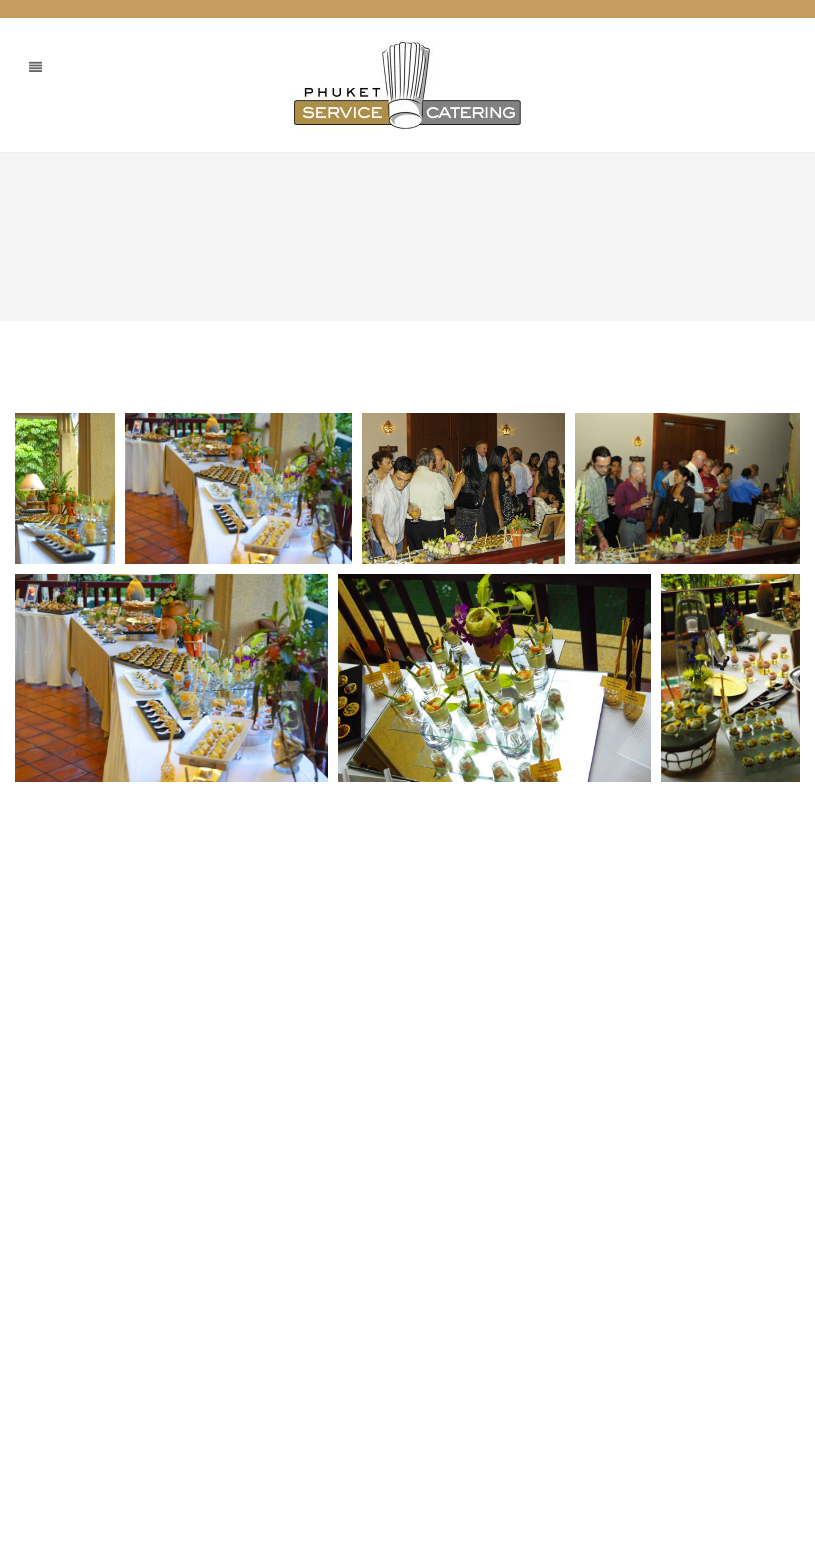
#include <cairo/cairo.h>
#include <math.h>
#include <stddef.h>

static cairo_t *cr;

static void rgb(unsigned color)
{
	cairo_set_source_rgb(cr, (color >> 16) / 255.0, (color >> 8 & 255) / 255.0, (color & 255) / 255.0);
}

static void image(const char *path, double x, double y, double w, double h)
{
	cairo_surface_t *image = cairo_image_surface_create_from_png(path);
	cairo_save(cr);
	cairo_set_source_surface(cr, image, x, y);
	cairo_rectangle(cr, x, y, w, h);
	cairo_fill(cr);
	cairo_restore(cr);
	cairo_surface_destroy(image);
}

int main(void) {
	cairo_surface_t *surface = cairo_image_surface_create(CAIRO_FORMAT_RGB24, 815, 1542);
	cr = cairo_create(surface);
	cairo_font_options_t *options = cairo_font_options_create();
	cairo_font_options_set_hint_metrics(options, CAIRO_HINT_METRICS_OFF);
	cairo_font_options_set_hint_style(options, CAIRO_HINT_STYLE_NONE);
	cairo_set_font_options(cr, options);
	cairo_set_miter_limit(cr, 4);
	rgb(0xffffff);
	cairo_paint(cr);
	rgb(0xc79c60);
	cairo_rectangle(cr, 0, 0, 815, 18);
	cairo_fill(cr);
	rgb(0xefefef);
	cairo_rectangle(cr, 0, 152, 815, 1);
	cairo_fill(cr);
	image("img/1.png", 29, 61, 13, 11);
	image("img/2.png", 290, 40, 232, 90);
	rgb(0xf5f5f5);
	cairo_rectangle(cr, 0, 153, 815, 168);
	cairo_fill(cr);
	image("img/3.png", 15, 413, 100, 151);
	image("img/4.png", 125, 413, 227, 151);
	image("img/5.png", 362, 413, 203, 151);
	image("img/6.png", 575, 413, 225, 151);
	image("img/7.png", 15, 574, 313, 208);
	image("img/8.png", 338, 574, 313, 208);
	image("img/9.png", 661, 574, 139, 208);
	cairo_surface_write_to_png(surface, "page.png");
	cairo_font_options_destroy(options);
	cairo_destroy(cr);
	cairo_surface_destroy(surface);
	return 0;
}
